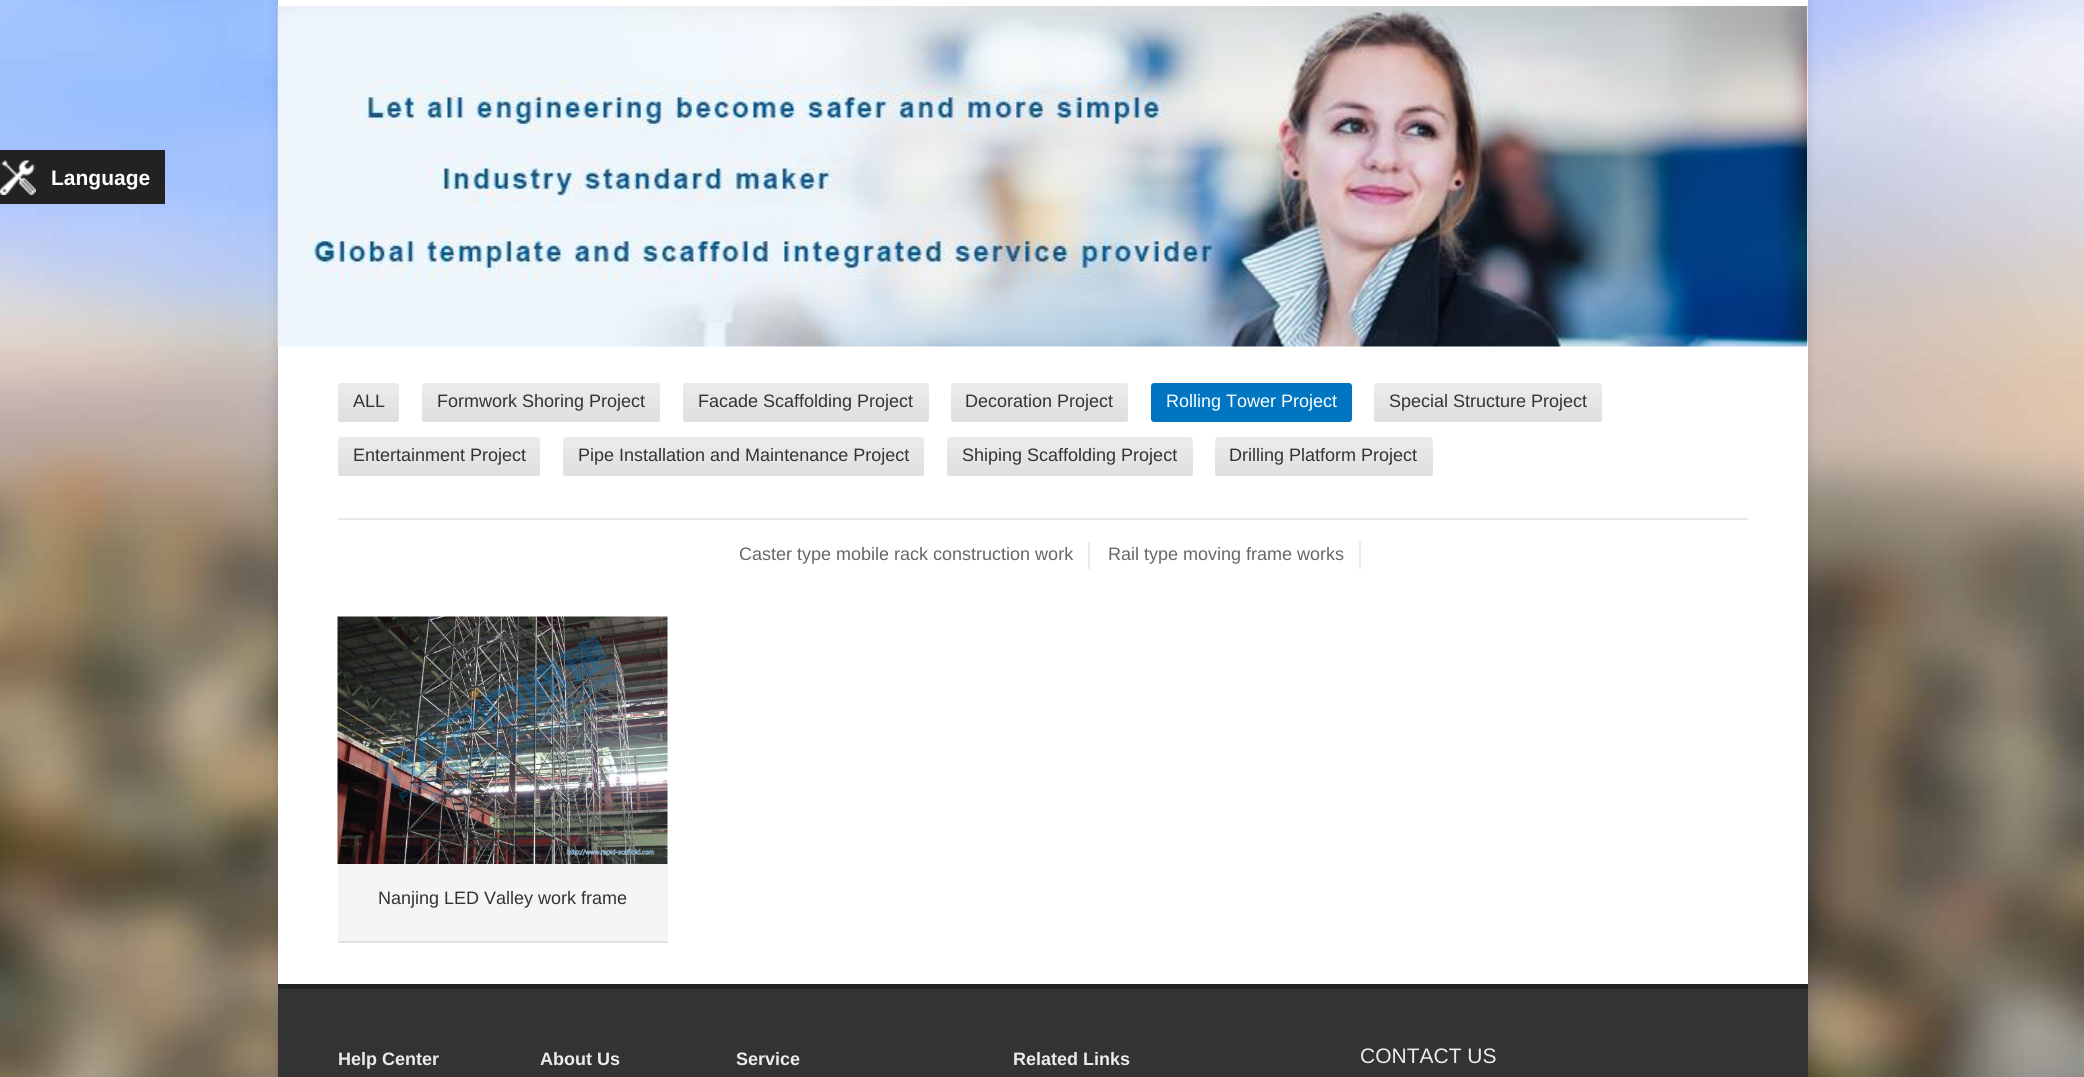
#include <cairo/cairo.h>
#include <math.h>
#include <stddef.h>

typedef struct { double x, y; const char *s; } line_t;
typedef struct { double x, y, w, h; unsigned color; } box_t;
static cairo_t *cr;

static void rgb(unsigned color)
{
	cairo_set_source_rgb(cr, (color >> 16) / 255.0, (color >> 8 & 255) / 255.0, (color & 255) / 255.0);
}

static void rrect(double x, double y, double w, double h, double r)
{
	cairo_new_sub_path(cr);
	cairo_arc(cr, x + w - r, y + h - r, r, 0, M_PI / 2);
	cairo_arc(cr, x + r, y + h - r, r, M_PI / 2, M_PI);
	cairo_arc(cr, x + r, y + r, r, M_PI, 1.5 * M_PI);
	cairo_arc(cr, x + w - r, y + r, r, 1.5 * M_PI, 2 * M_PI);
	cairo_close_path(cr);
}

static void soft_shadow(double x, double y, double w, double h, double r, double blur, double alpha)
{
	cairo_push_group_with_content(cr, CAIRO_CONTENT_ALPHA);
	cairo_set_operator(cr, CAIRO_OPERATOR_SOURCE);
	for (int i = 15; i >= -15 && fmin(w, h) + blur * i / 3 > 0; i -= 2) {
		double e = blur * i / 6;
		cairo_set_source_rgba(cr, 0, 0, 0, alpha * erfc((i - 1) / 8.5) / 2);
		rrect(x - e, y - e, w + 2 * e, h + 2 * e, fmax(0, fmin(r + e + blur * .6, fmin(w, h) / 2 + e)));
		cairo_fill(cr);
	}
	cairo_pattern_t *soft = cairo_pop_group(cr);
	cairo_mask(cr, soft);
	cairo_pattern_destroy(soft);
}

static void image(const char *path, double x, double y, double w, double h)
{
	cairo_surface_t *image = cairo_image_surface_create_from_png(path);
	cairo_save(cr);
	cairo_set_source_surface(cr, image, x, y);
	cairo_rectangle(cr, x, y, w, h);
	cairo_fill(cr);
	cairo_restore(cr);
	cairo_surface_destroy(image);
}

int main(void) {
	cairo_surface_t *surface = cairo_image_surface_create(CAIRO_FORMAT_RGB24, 2084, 1077);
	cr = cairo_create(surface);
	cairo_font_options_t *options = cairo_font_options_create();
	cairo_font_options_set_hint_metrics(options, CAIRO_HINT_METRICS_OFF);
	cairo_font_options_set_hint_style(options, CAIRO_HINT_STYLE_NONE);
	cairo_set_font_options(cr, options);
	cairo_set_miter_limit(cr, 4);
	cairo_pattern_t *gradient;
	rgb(0xffffff);
	cairo_paint(cr);
	image("img/1.png", 0, 0, 2084, 1077);
	rgb(0x222222);
	cairo_rectangle(cr, 0, 150, 165, 54);
	cairo_fill(cr);
	image("img/2.png", 0, 160, 36, 35);
	rgb(0x000000);
	soft_shadow(278, -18, 1530, 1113, 0, 6, 0.11);
	rgb(0xffffff);
	cairo_rectangle(cr, 278, 0, 1530, 984);
	cairo_fill(cr);
	image("img/3.png", 277, 6, 1531, 341);
	rgb(0xebebeb);
	rrect(338, 383, 61, 39, 3);
	cairo_fill(cr);
	gradient = cairo_pattern_create_linear(368, 383, 368, 422);
	cairo_pattern_add_color_stop_rgba(gradient, 0, 1, 1, 1, 0.05);
	cairo_pattern_add_color_stop_rgba(gradient, 1, 0, 0, 0, 0.05);
	cairo_set_source(cr, gradient);
	cairo_pattern_destroy(gradient);
	cairo_rectangle(cr, 338, 393, 61, 29);
	cairo_fill(cr);
	rgb(0xebebeb);
	rrect(422, 383, 238, 39, 3);
	cairo_fill(cr);
	gradient = cairo_pattern_create_linear(541, 383, 541, 422);
	cairo_pattern_add_color_stop_rgba(gradient, 0, 1, 1, 1, 0.05);
	cairo_pattern_add_color_stop_rgba(gradient, 1, 0, 0, 0, 0.05);
	cairo_set_source(cr, gradient);
	cairo_pattern_destroy(gradient);
	cairo_rectangle(cr, 422, 393, 238, 29);
	cairo_fill(cr);
	rgb(0xebebeb);
	rrect(683, 383, 246, 39, 3);
	cairo_fill(cr);
	gradient = cairo_pattern_create_linear(806, 383, 806, 422);
	cairo_pattern_add_color_stop_rgba(gradient, 0, 1, 1, 1, 0.05);
	cairo_pattern_add_color_stop_rgba(gradient, 1, 0, 0, 0, 0.05);
	cairo_set_source(cr, gradient);
	cairo_pattern_destroy(gradient);
	cairo_rectangle(cr, 683, 393, 246, 29);
	cairo_fill(cr);
	rgb(0xebebeb);
	rrect(951, 383, 177, 39, 3);
	cairo_fill(cr);
	gradient = cairo_pattern_create_linear(1040, 383, 1040, 422);
	cairo_pattern_add_color_stop_rgba(gradient, 0, 1, 1, 1, 0.05);
	cairo_pattern_add_color_stop_rgba(gradient, 1, 0, 0, 0, 0.05);
	cairo_set_source(cr, gradient);
	cairo_pattern_destroy(gradient);
	cairo_rectangle(cr, 951, 393, 177, 29);
	cairo_fill(cr);
	rgb(0x0075c1);
	rrect(1151, 383, 201, 39, 3);
	cairo_fill(cr);
	rgb(0xebebeb);
	rrect(1374, 383, 228, 39, 3);
	cairo_fill(cr);
	gradient = cairo_pattern_create_linear(1488, 383, 1488, 422);
	cairo_pattern_add_color_stop_rgba(gradient, 0, 1, 1, 1, 0.05);
	cairo_pattern_add_color_stop_rgba(gradient, 1, 0, 0, 0, 0.05);
	cairo_set_source(cr, gradient);
	cairo_pattern_destroy(gradient);
	cairo_rectangle(cr, 1374, 393, 228, 29);
	cairo_fill(cr);
	rgb(0xebebeb);
	rrect(338, 437, 202, 39, 3);
	cairo_fill(cr);
	gradient = cairo_pattern_create_linear(439, 437, 439, 476);
	cairo_pattern_add_color_stop_rgba(gradient, 0, 1, 1, 1, 0.05);
	cairo_pattern_add_color_stop_rgba(gradient, 1, 0, 0, 0, 0.05);
	cairo_set_source(cr, gradient);
	cairo_pattern_destroy(gradient);
	cairo_rectangle(cr, 338, 447, 202, 29);
	cairo_fill(cr);
	rgb(0xebebeb);
	rrect(563, 437, 361, 39, 3);
	cairo_fill(cr);
	gradient = cairo_pattern_create_linear(743, 437, 743, 476);
	cairo_pattern_add_color_stop_rgba(gradient, 0, 1, 1, 1, 0.05);
	cairo_pattern_add_color_stop_rgba(gradient, 1, 0, 0, 0, 0.05);
	cairo_set_source(cr, gradient);
	cairo_pattern_destroy(gradient);
	cairo_rectangle(cr, 563, 447, 361, 29);
	cairo_fill(cr);
	rgb(0xebebeb);
	rrect(947, 437, 246, 39, 3);
	cairo_fill(cr);
	gradient = cairo_pattern_create_linear(1070, 437, 1070, 476);
	cairo_pattern_add_color_stop_rgba(gradient, 0, 1, 1, 1, 0.05);
	cairo_pattern_add_color_stop_rgba(gradient, 1, 0, 0, 0, 0.05);
	cairo_set_source(cr, gradient);
	cairo_pattern_destroy(gradient);
	cairo_rectangle(cr, 947, 447, 246, 29);
	cairo_fill(cr);
	rgb(0xebebeb);
	rrect(1215, 437, 218, 39, 3);
	cairo_fill(cr);
	gradient = cairo_pattern_create_linear(1324, 437, 1324, 476);
	cairo_pattern_add_color_stop_rgba(gradient, 0, 1, 1, 1, 0.05);
	cairo_pattern_add_color_stop_rgba(gradient, 1, 0, 0, 0, 0.05);
	cairo_set_source(cr, gradient);
	cairo_pattern_destroy(gradient);
	cairo_rectangle(cr, 1215, 447, 218, 29);
	cairo_fill(cr);
	{
		static const box_t items[] = {
			{338, 518, 1410, 2, 0xe9e9e9},
			{1088, 542, 2, 27, 0xe9e9e9},
			{1359, 542, 2, 27, 0xe9e9e9},
		};
		for (size_t i = 0; i < sizeof items / sizeof *items; i++) {
			rgb(items[i].color);
			cairo_rectangle(cr, items[i].x, items[i].y, items[i].w, items[i].h);
			cairo_fill(cr);
		}
	}
	image("img/4.png", 337, 616, 331, 248);
	{
		static const box_t items[] = {
			{338, 864, 330, 77, 0xf5f5f5},
			{338, 941, 330, 2, 0xe0e0e0},
			{278, 989, 1530, 88, 0x333333},
			{278, 984, 1530, 5, 0x212121},
		};
		for (size_t i = 0; i < sizeof items / sizeof *items; i++) {
			rgb(items[i].color);
			cairo_rectangle(cr, items[i].x, items[i].y, items[i].w, items[i].h);
			cairo_fill(cr);
		}
	}
	cairo_select_font_face(cr, "Liberation Sans", CAIRO_FONT_SLANT_NORMAL, CAIRO_FONT_WEIGHT_BOLD);
	cairo_set_font_size(cr, 21);
	rgb(0xffffff);
	cairo_move_to(cr, 51, 185);
	cairo_show_text(cr, "Language");
	cairo_select_font_face(cr, "Liberation Sans", CAIRO_FONT_SLANT_NORMAL, CAIRO_FONT_WEIGHT_NORMAL);
	cairo_set_font_size(cr, 18);
	rgb(0x333333);
	{
		static const line_t items[] = {
			{353, 407, "ALL"},
			{437, 407, "Formwork Shoring Project"},
			{698, 407, "Facade Scaffolding Project"},
			{965, 407, "Decoration Project"},
		};
		for (size_t i = 0; i < sizeof items / sizeof *items; i++) {
			cairo_move_to(cr, items[i].x, items[i].y);
			cairo_show_text(cr, items[i].s);
		}
	}
	rgb(0xffffff);
	cairo_move_to(cr, 1166, 407);
	cairo_show_text(cr, "Rolling Tower Project");
	rgb(0x333333);
	{
		static const line_t items[] = {
			{1389, 407, "Special Structure Project"},
			{353, 461, "Entertainment Project"},
			{578, 461, "Pipe Installation and Maintenance Project"},
			{962, 461, "Shiping Scaffolding Project"},
			{1229, 461, "Drilling Platform Project"},
		};
		for (size_t i = 0; i < sizeof items / sizeof *items; i++) {
			cairo_move_to(cr, items[i].x, items[i].y);
			cairo_show_text(cr, items[i].s);
		}
	}
	rgb(0x666666);
	cairo_move_to(cr, 739, 560);
	cairo_show_text(cr, "Caster type mobile rack construction work");
	cairo_move_to(cr, 1108, 560);
	cairo_show_text(cr, "Rail type moving frame works");
	rgb(0x333333);
	cairo_move_to(cr, 378, 904);
	cairo_show_text(cr, "Nanjing LED Valley work frame");
	cairo_select_font_face(cr, "Liberation Sans", CAIRO_FONT_SLANT_NORMAL, CAIRO_FONT_WEIGHT_BOLD);
	rgb(0xebebeb);
	{
		static const line_t items[] = {
			{338, 1065, "Help Center"},
			{540, 1065, "About Us"},
			{736, 1065, "Service"},
			{1013, 1065, "Related Links"},
		};
		for (size_t i = 0; i < sizeof items / sizeof *items; i++) {
			cairo_move_to(cr, items[i].x, items[i].y);
			cairo_show_text(cr, items[i].s);
		}
	}
	cairo_select_font_face(cr, "Liberation Sans", CAIRO_FONT_SLANT_NORMAL, CAIRO_FONT_WEIGHT_NORMAL);
	cairo_set_font_size(cr, 21);
	cairo_move_to(cr, 1360, 1063);
	cairo_show_text(cr, "CONTACT US");
	cairo_surface_write_to_png(surface, "page.png");
	cairo_font_options_destroy(options);
	cairo_destroy(cr);
	cairo_surface_destroy(surface);
	return 0;
}
